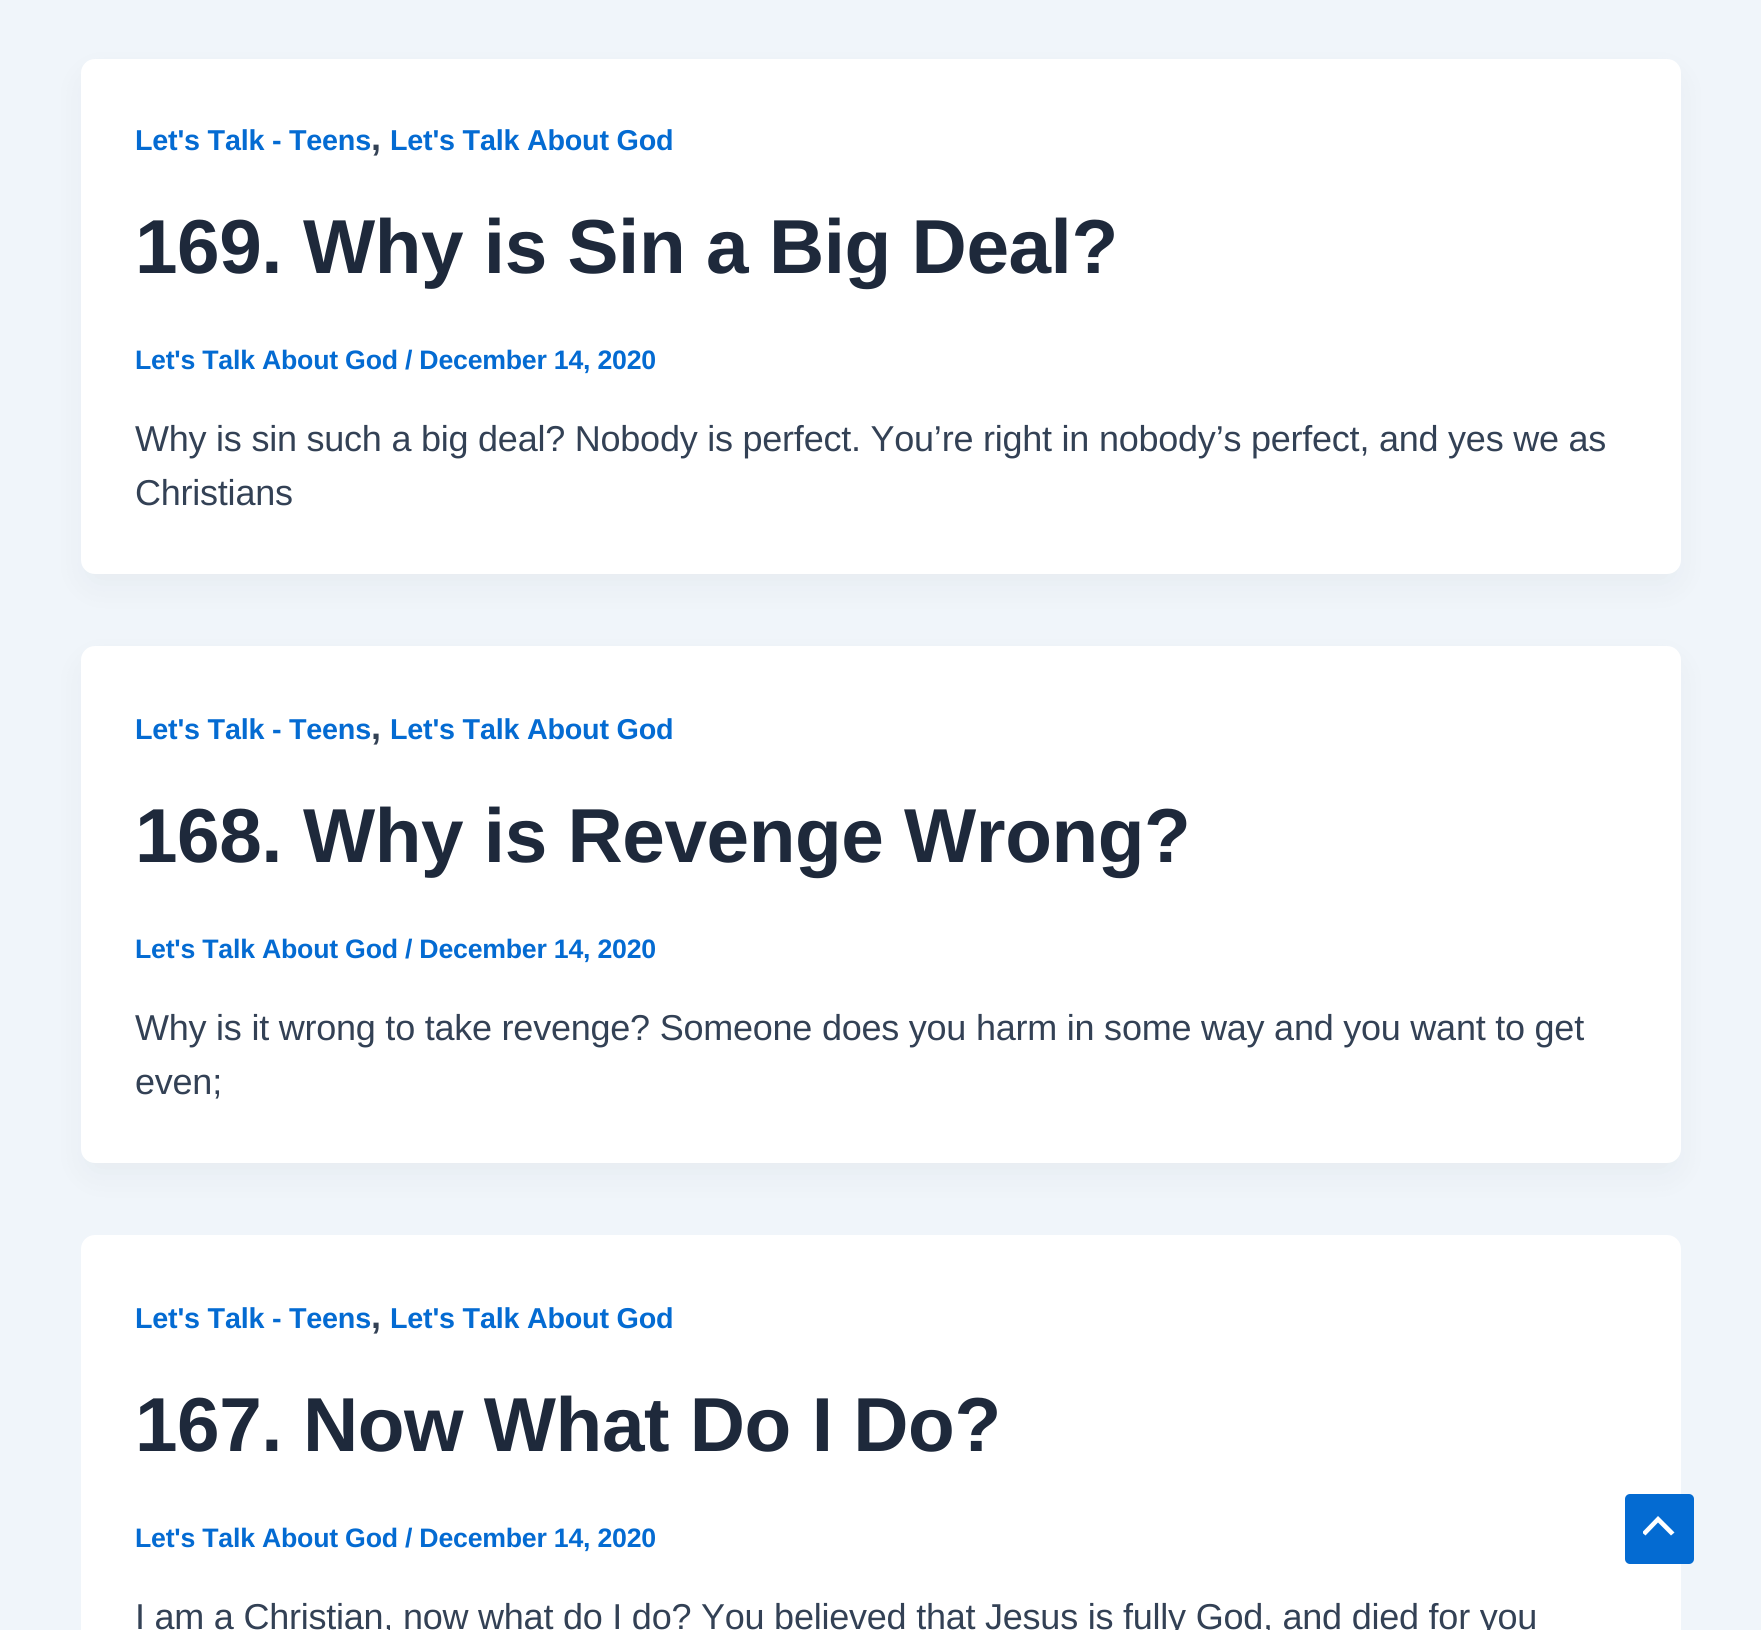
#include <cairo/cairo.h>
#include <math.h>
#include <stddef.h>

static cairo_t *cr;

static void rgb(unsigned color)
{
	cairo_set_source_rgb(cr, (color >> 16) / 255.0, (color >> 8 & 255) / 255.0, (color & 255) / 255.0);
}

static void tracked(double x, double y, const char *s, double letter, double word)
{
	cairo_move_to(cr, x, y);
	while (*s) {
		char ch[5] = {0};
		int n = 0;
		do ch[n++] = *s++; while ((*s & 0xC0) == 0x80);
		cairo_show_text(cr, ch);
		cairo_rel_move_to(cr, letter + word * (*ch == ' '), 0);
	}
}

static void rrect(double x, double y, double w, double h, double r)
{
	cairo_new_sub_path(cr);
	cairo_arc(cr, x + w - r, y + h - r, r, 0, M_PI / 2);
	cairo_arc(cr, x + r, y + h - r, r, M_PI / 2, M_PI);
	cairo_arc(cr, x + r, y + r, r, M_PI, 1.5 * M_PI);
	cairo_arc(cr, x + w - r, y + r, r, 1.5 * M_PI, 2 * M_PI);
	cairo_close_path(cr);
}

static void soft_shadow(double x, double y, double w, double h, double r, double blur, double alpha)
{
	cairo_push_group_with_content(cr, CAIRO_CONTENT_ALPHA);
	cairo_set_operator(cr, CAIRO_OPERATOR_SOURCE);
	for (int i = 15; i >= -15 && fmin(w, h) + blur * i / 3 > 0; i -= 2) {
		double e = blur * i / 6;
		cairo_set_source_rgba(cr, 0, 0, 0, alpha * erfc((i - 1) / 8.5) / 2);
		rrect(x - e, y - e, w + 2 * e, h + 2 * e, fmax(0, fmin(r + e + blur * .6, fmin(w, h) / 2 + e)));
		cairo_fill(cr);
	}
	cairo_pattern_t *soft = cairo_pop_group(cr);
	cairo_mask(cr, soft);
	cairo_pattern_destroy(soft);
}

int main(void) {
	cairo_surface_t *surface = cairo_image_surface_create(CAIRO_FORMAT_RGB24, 1761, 1630);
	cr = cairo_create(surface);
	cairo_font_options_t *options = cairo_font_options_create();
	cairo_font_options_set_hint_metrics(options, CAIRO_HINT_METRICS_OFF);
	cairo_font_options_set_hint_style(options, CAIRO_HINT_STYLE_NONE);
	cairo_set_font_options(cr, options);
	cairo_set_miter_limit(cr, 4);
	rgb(0xf0f5fa);
	cairo_paint(cr);
	rgb(0x101828);
	soft_shadow(86, 77, 1590, 506, 9, 17, 0.05);
	rgb(0xffffff);
	rrect(81, 59, 1600, 515, 14);
	cairo_fill(cr);
	rgb(0x101828);
	soft_shadow(86, 664, 1590, 508, 9, 17, 0.05);
	rgb(0xffffff);
	rrect(81, 646, 1600, 517, 14);
	cairo_fill(cr);
	rrect(81, 1235, 1600, 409, 14);
	cairo_fill(cr);
	rgb(0x046bd2);
	rrect(1625, 1494, 69, 70, 5);
	cairo_fill(cr);
	cairo_save(cr);
	cairo_rectangle(cr, 1643, 1512, 33, 27);
	cairo_clip(cr);
	rgb(0xffffff);
	cairo_new_path(cr);
	cairo_move_to(cr, 1674.5, 1532.5);
	cairo_line_to(cr, 1658, 1516);
	cairo_line_to(cr, 1642, 1532.5);
	cairo_line_to(cr, 1645.5, 1535.5);
	cairo_line_to(cr, 1658, 1522.5);
	cairo_line_to(cr, 1671, 1535.5);
	cairo_close_path(cr);
	cairo_fill(cr);
	cairo_restore(cr);
	cairo_select_font_face(cr, "Liberation Sans", CAIRO_FONT_SLANT_NORMAL, CAIRO_FONT_WEIGHT_BOLD);
	cairo_set_font_size(cr, 28.75);
	tracked(135, 150, "Let's Talk - Teens", -0.23, 0);
	cairo_set_font_size(cr, 36);
	rgb(0x334155);
	tracked(371, 150, ",", -0.23, 0);
	cairo_set_font_size(cr, 28.75);
	rgb(0x046bd2);
	tracked(390, 150, "Let's Talk About God", -0.23, 0);
	cairo_set_font_size(cr, 76.5);
	rgb(0x1e293b);
	tracked(135, 273, "169. Why is Sin a Big Deal?", -0.45, 0);
	cairo_set_font_size(cr, 26.7);
	rgb(0x046bd2);
	tracked(135, 369, "Let's Talk About God / December 14, 2020", -0.23, 0);
	cairo_select_font_face(cr, "Liberation Sans", CAIRO_FONT_SLANT_NORMAL, CAIRO_FONT_WEIGHT_NORMAL);
	cairo_set_font_size(cr, 36);
	rgb(0x334155);
	tracked(135, 451, "Why is sin such a big deal? Nobody is perfect. You’re right in nobody’s perfect, and yes we as", -0.23, 0);
	tracked(135, 505, "Christians", -0.23, 0);
	cairo_select_font_face(cr, "Liberation Sans", CAIRO_FONT_SLANT_NORMAL, CAIRO_FONT_WEIGHT_BOLD);
	cairo_set_font_size(cr, 28.75);
	rgb(0x046bd2);
	tracked(135, 739, "Let's Talk - Teens", -0.23, 0);
	cairo_set_font_size(cr, 36);
	rgb(0x334155);
	tracked(371, 739, ",", -0.23, 0);
	cairo_set_font_size(cr, 28.75);
	rgb(0x046bd2);
	tracked(390, 739, "Let's Talk About God", -0.23, 0);
	cairo_set_font_size(cr, 76.5);
	rgb(0x1e293b);
	tracked(135, 862, "168. Why is Revenge Wrong?", -0.45, 0);
	cairo_set_font_size(cr, 26.7);
	rgb(0x046bd2);
	tracked(135, 958, "Let's Talk About God / December 14, 2020", -0.23, 0);
	cairo_select_font_face(cr, "Liberation Sans", CAIRO_FONT_SLANT_NORMAL, CAIRO_FONT_WEIGHT_NORMAL);
	cairo_set_font_size(cr, 36);
	rgb(0x334155);
	tracked(135, 1040, "Why is it wrong to take revenge? Someone does you harm in some way and you want to get", -0.23, 0);
	tracked(135, 1094, "even;", -0.23, 0);
	cairo_select_font_face(cr, "Liberation Sans", CAIRO_FONT_SLANT_NORMAL, CAIRO_FONT_WEIGHT_BOLD);
	cairo_set_font_size(cr, 28.75);
	rgb(0x046bd2);
	tracked(135, 1328, "Let's Talk - Teens", -0.23, 0);
	cairo_set_font_size(cr, 36);
	rgb(0x334155);
	tracked(371, 1328, ",", -0.23, 0);
	cairo_set_font_size(cr, 28.75);
	rgb(0x046bd2);
	tracked(390, 1328, "Let's Talk About God", -0.23, 0);
	cairo_set_font_size(cr, 76.5);
	rgb(0x1e293b);
	tracked(135, 1451, "167. Now What Do I Do?", -0.45, 0);
	cairo_set_font_size(cr, 26.7);
	rgb(0x046bd2);
	tracked(135, 1547, "Let's Talk About God / December 14, 2020", -0.23, 0);
	cairo_select_font_face(cr, "Liberation Sans", CAIRO_FONT_SLANT_NORMAL, CAIRO_FONT_WEIGHT_NORMAL);
	cairo_set_font_size(cr, 36);
	rgb(0x334155);
	tracked(135, 1629, "I am a Christian, now what do I do? You believed that Jesus is fully God, and died for you", -0.23, 0);
	cairo_surface_write_to_png(surface, "page.png");
	cairo_font_options_destroy(options);
	cairo_destroy(cr);
	cairo_surface_destroy(surface);
	return 0;
}
